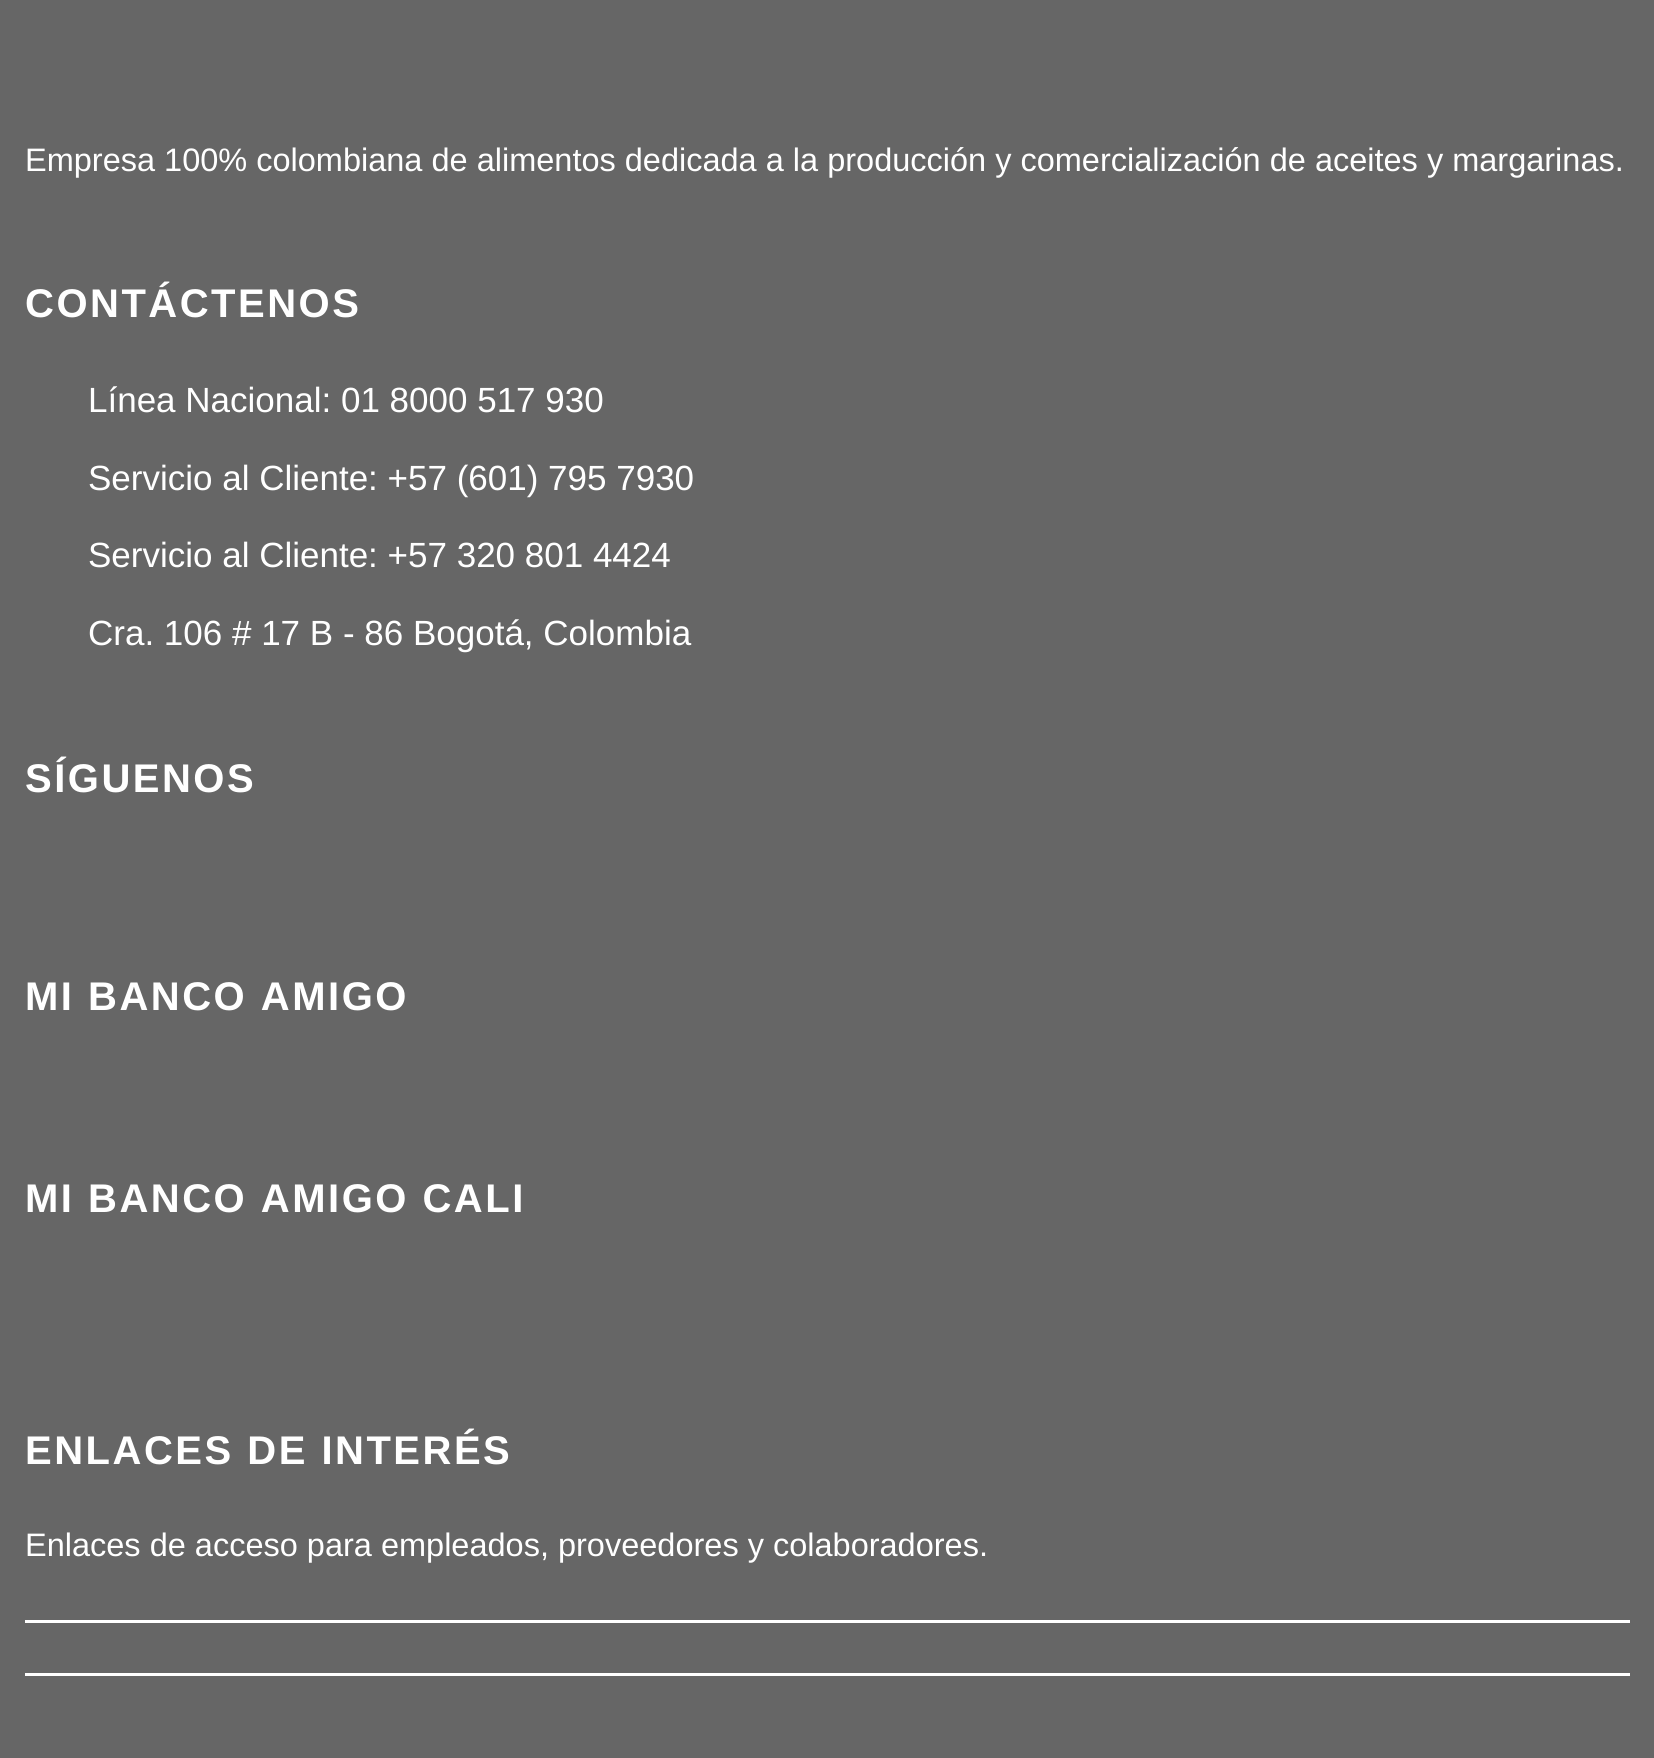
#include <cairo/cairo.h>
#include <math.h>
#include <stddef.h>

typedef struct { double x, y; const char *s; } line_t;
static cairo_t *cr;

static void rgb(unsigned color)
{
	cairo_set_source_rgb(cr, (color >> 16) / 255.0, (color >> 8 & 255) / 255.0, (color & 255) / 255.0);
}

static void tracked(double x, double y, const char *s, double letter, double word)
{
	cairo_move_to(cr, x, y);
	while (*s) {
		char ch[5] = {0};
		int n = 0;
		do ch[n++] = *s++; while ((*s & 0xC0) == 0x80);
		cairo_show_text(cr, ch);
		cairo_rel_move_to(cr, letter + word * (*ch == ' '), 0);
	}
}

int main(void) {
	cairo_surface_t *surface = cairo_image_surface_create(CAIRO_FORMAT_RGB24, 1654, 1758);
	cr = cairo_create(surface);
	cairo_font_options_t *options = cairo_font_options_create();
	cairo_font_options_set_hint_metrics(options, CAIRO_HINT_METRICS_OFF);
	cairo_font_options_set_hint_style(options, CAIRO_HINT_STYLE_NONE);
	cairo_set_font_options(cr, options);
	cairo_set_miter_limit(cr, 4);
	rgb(0x666666);
	cairo_paint(cr);
	rgb(0xffffff);
	cairo_rectangle(cr, 25, 1620, 1605, 3);
	cairo_fill(cr);
	cairo_rectangle(cr, 25, 1673, 1605, 3);
	cairo_fill(cr);
	cairo_select_font_face(cr, "Liberation Sans", CAIRO_FONT_SLANT_NORMAL, CAIRO_FONT_WEIGHT_NORMAL);
	cairo_set_font_size(cr, 32.5);
	cairo_move_to(cr, 25, 171);
	cairo_show_text(cr, "Empresa 100% colombiana de alimentos dedicada a la producción y comercialización de aceites y margarinas.");
	cairo_select_font_face(cr, "Liberation Sans", CAIRO_FONT_SLANT_NORMAL, CAIRO_FONT_WEIGHT_BOLD);
	cairo_set_font_size(cr, 40);
	tracked(25, 317, "CONTÁCTENOS", 2.5, 0);
	cairo_select_font_face(cr, "Liberation Sans", CAIRO_FONT_SLANT_NORMAL, CAIRO_FONT_WEIGHT_NORMAL);
	cairo_set_font_size(cr, 35);
	{
		static const line_t items[] = {
			{88, 412, "Línea Nacional: 01 8000 517 930"},
			{88, 490, "Servicio al Cliente: +57 (601) 795 7930"},
			{88, 567, "Servicio al Cliente: +57 320 801 4424"},
			{88, 645, "Cra. 106 # 17 B - 86 Bogotá, Colombia"},
		};
		for (size_t i = 0; i < sizeof items / sizeof *items; i++) {
			cairo_move_to(cr, items[i].x, items[i].y);
			cairo_show_text(cr, items[i].s);
		}
	}
	cairo_select_font_face(cr, "Liberation Sans", CAIRO_FONT_SLANT_NORMAL, CAIRO_FONT_WEIGHT_BOLD);
	cairo_set_font_size(cr, 40);
	{
		static const line_t items[] = {
			{25, 792, "SÍGUENOS"},
			{25, 1010, "MI BANCO AMIGO"},
			{25, 1212, "MI BANCO AMIGO CALI"},
			{25, 1464, "ENLACES DE INTERÉS"},
		};
		for (size_t i = 0; i < sizeof items / sizeof *items; i++) {
			tracked(items[i].x, items[i].y, items[i].s, 2.5, 0);
		}
	}
	cairo_select_font_face(cr, "Liberation Sans", CAIRO_FONT_SLANT_NORMAL, CAIRO_FONT_WEIGHT_NORMAL);
	cairo_set_font_size(cr, 32.5);
	cairo_move_to(cr, 25, 1556);
	cairo_show_text(cr, "Enlaces de acceso para empleados, proveedores y colaboradores.");
	cairo_surface_write_to_png(surface, "page.png");
	cairo_font_options_destroy(options);
	cairo_destroy(cr);
	cairo_surface_destroy(surface);
	return 0;
}
